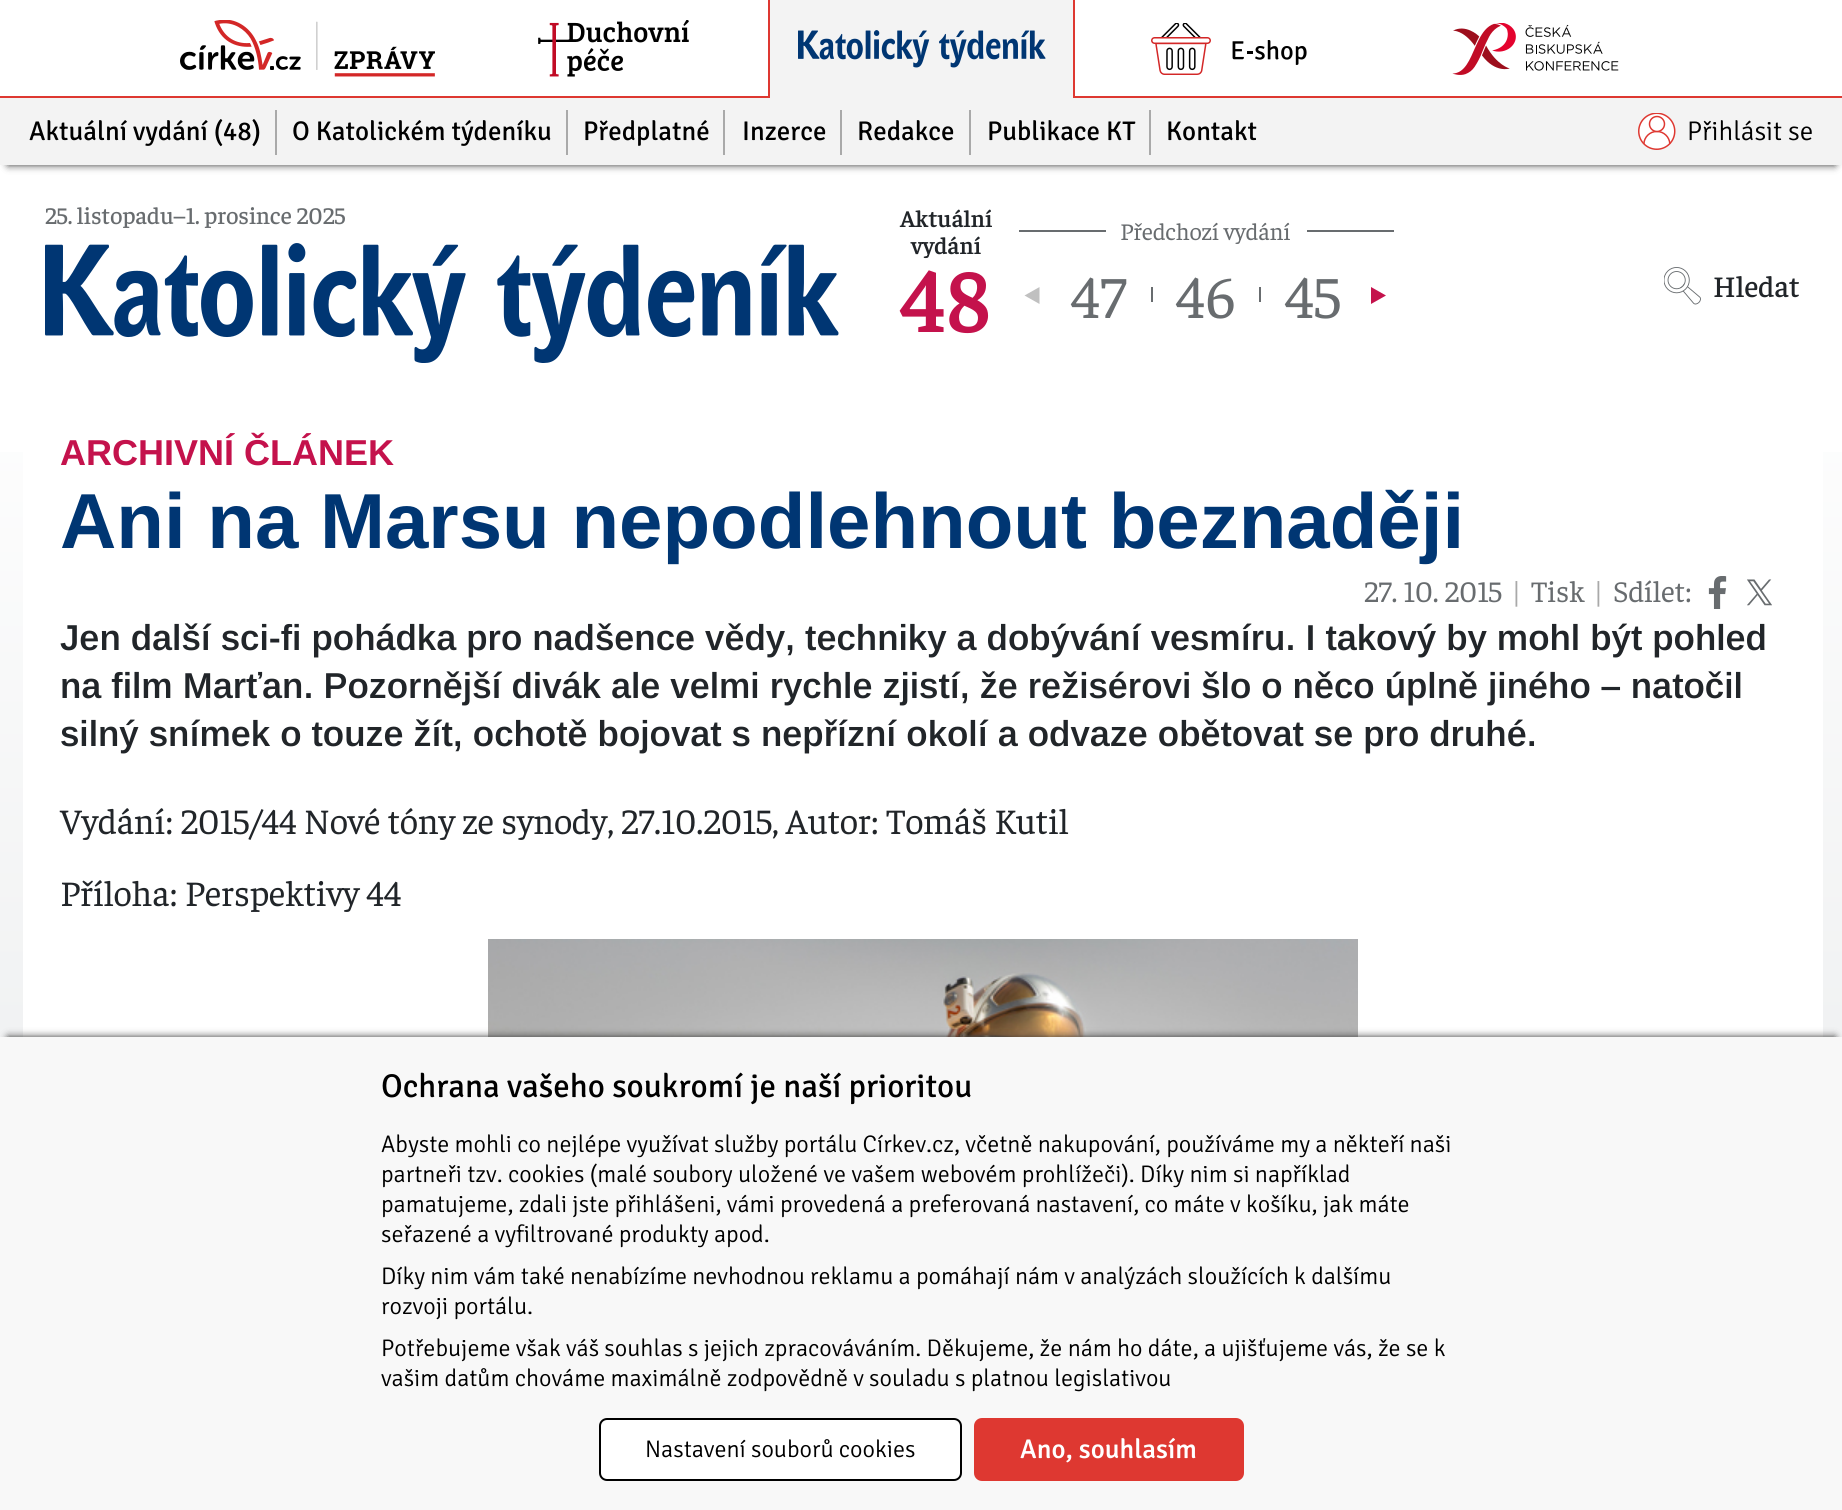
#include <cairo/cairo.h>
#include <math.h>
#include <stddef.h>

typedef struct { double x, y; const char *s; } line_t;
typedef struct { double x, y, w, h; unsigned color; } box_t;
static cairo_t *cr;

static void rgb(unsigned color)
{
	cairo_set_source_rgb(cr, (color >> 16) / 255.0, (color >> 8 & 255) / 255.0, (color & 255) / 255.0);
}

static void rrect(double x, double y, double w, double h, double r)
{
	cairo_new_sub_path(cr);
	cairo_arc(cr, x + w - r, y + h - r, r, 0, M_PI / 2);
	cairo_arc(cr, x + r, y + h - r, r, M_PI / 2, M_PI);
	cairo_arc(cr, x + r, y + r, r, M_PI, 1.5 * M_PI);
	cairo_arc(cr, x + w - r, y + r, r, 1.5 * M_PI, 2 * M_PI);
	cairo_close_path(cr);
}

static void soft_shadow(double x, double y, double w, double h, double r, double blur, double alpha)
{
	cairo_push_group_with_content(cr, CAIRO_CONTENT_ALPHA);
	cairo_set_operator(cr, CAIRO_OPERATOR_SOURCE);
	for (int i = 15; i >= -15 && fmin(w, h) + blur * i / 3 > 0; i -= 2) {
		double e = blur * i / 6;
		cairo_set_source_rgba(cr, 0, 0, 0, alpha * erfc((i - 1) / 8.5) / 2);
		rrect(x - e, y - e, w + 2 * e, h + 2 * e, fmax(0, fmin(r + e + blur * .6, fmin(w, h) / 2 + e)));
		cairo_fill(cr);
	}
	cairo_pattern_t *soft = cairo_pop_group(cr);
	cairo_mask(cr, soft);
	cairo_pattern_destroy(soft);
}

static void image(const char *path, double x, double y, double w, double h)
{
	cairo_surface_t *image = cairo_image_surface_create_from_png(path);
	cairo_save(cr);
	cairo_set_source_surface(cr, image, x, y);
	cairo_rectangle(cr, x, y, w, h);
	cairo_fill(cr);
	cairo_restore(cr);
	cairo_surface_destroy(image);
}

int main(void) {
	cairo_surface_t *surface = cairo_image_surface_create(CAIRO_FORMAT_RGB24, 1842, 1510);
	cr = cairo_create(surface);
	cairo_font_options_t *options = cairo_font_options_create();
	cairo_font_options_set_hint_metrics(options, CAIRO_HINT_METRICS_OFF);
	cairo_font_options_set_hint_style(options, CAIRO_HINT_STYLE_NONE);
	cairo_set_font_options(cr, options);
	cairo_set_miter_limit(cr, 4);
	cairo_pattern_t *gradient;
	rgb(0xffffff);
	cairo_paint(cr);
	rgb(0xde3831);
	cairo_rectangle(cr, 0, 96, 1842, 2);
	cairo_fill(cr);
	image("img/1.png", 180, 20, 255, 57);
	image("img/2.png", 538, 20, 151, 57);
	{
		static const box_t items[] = {
			{770, 0, 303, 98, 0xf3f3f3},
			{1073, 0, 2, 99, 0xde3831},
			{768, 0, 2, 99, 0xde3831},
		};
		for (size_t i = 0; i < sizeof items / sizeof *items; i++) {
			rgb(items[i].color);
			cairo_rectangle(cr, items[i].x, items[i].y, items[i].w, items[i].h);
			cairo_fill(cr);
		}
	}
	image("img/3.png", 798, 30, 248, 38);
	image("img/4.png", 1151, 23, 156, 52);
	image("img/5.png", 1452, 23, 167, 52);
	rgb(0x333333);
	soft_shadow(8, 113, 1827, 52, 0, 4, 1);
	{
		static const box_t items[] = {
			{0, 98, 1842, 67, 0xf3f3f3},
			{275, 110, 2, 45, 0xa9a9a9},
			{566, 110, 2, 45, 0xa9a9a9},
			{723, 110, 2, 45, 0xa9a9a9},
			{840, 110, 2, 45, 0xa9a9a9},
			{969, 110, 2, 45, 0xa9a9a9},
			{1149, 110, 2, 45, 0xa9a9a9},
		};
		for (size_t i = 0; i < sizeof items / sizeof *items; i++) {
			rgb(items[i].color);
			cairo_rectangle(cr, items[i].x, items[i].y, items[i].w, items[i].h);
			cairo_fill(cr);
		}
	}
	image("img/6.png", 1638, 113, 38, 37);
	gradient = cairo_pattern_create_linear(921, 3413, 921, 165);
	cairo_pattern_add_color_stop_rgba(gradient, 0.35, 0.847, 0.859, 0.867, 1);
	cairo_pattern_add_color_stop_rgba(gradient, 0.95, 1, 1, 1, 1);
	cairo_set_source(cr, gradient);
	cairo_pattern_destroy(gradient);
	cairo_rectangle(cr, 0, 452, 1842, 585);
	cairo_fill(cr);
	image("img/7.png", 45, 243, 794, 120);
	rgb(0x686c6f);
	cairo_rectangle(cr, 1019, 230, 375, 2);
	cairo_fill(cr);
	rgb(0xffffff);
	cairo_rectangle(cr, 1106, 230, 201, 2);
	cairo_fill(cr);
	rgb(0xc0c0c0);
	cairo_new_path(cr);
	cairo_move_to(cr, 1024.5, 295.5);
	cairo_line_to(cr, 1039.5, 304);
	cairo_line_to(cr, 1039.5, 287);
	cairo_close_path(cr);
	cairo_fill(cr);
	rgb(0x686c6f);
	cairo_rectangle(cr, 1151, 287, 2, 15);
	cairo_fill(cr);
	cairo_rectangle(cr, 1259, 287, 2, 15);
	cairo_fill(cr);
	rgb(0xc4124c);
	cairo_new_path(cr);
	cairo_move_to(cr, 1386, 295.5);
	cairo_line_to(cr, 1371, 287);
	cairo_line_to(cr, 1371, 304);
	cairo_close_path(cr);
	cairo_fill(cr);
	image("img/8.png", 1664, 267, 37, 38);
	rgb(0xffffff);
	cairo_rectangle(cr, 23, 452, 1800, 585);
	cairo_fill(cr);
	image("img/9.png", 1708, 576, 19, 33);
	image("img/10.png", 1747, 579, 25, 27);
	image("img/11.png", 488, 939, 870, 98);
	rgb(0x333333);
	soft_shadow(8, 1037, 1827, 459, 0, 4, 1);
	rgb(0xf8f8f8);
	cairo_rectangle(cr, 0, 1037, 1842, 473);
	cairo_fill(cr);
	rgb(0xffffff);
	rrect(600, 1419, 361, 61, 7);
	cairo_fill_preserve(cr);
	rgb(0x000000);
	cairo_stroke(cr);
	rgb(0xde3831);
	rrect(974, 1418, 270, 63, 8);
	cairo_fill(cr);
	cairo_select_font_face(cr, "Signika Light", CAIRO_FONT_SLANT_NORMAL, CAIRO_FONT_WEIGHT_NORMAL);
	cairo_set_font_size(cr, 27);
	rgb(0x000000);
	{
		static const line_t items[] = {
			{29, 140, "Aktuální vydání (48)"},
			{292, 140, "O Katolickém týdeníku"},
			{583, 140, "Předplatné"},
			{742, 140, "Inzerce"},
			{857, 140, "Redakce"},
			{987, 140, "Publikace KT"},
			{1166, 140, "Kontakt"},
		};
		for (size_t i = 0; i < sizeof items / sizeof *items; i++) {
			cairo_move_to(cr, items[i].x, items[i].y);
			cairo_show_text(cr, items[i].s);
		}
	}
	cairo_select_font_face(cr, "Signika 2 Light", CAIRO_FONT_SLANT_NORMAL, CAIRO_FONT_WEIGHT_NORMAL);
	cairo_move_to(cr, 1687, 140);
	cairo_show_text(cr, "Přihlásit se");
	cairo_select_font_face(cr, "Faustina Light", CAIRO_FONT_SLANT_NORMAL, CAIRO_FONT_WEIGHT_NORMAL);
	cairo_set_font_size(cr, 24);
	rgb(0x686c6f);
	cairo_move_to(cr, 45, 224);
	cairo_show_text(cr, "25. listopadu–1. prosince 2025");
	cairo_select_font_face(cr, "Faustina SemiBold", CAIRO_FONT_SLANT_NORMAL, CAIRO_FONT_WEIGHT_NORMAL);
	rgb(0x212529);
	cairo_move_to(cr, 900, 227);
	cairo_show_text(cr, "Aktuální");
	cairo_move_to(cr, 911, 254);
	cairo_show_text(cr, "vydání");
	cairo_set_font_size(cr, 90);
	rgb(0xc4124c);
	cairo_move_to(cr, 900, 332);
	cairo_show_text(cr, "48");
	cairo_select_font_face(cr, "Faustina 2 Light", CAIRO_FONT_SLANT_NORMAL, CAIRO_FONT_WEIGHT_NORMAL);
	cairo_set_font_size(cr, 24);
	rgb(0x686c6f);
	cairo_move_to(cr, 1120, 240);
	cairo_show_text(cr, "Předchozí vydání");
	cairo_set_font_size(cr, 60);
	{
		static const line_t items[] = {
			{1071, 318, "47"},
			{1176, 318, "46"},
			{1285, 318, "45"},
		};
		for (size_t i = 0; i < sizeof items / sizeof *items; i++) {
			cairo_move_to(cr, items[i].x, items[i].y);
			cairo_show_text(cr, items[i].s);
		}
	}
	cairo_select_font_face(cr, "Faustina Light", CAIRO_FONT_SLANT_NORMAL, CAIRO_FONT_WEIGHT_NORMAL);
	cairo_set_font_size(cr, 30);
	rgb(0x212529);
	cairo_move_to(cr, 1713, 297);
	cairo_show_text(cr, "Hledat");
	cairo_select_font_face(cr, "Arimo", CAIRO_FONT_SLANT_NORMAL, CAIRO_FONT_WEIGHT_BOLD);
	cairo_set_font_size(cr, 36);
	rgb(0xc4124c);
	cairo_move_to(cr, 60, 465);
	cairo_show_text(cr, "ARCHIVNÍ ČLÁNEK");
	cairo_set_font_size(cr, 78);
	rgb(0x003673);
	cairo_move_to(cr, 60, 548);
	cairo_show_text(cr, "Ani na Marsu nepodlehnout beznaději");
	cairo_select_font_face(cr, "Faustina 2 Light", CAIRO_FONT_SLANT_NORMAL, CAIRO_FONT_WEIGHT_NORMAL);
	cairo_set_font_size(cr, 30);
	rgb(0x686c6f);
	cairo_move_to(cr, 1364, 602);
	cairo_show_text(cr, "27. 10. 2015");
	rgb(0xa9a9a9);
	cairo_move_to(cr, 1511, 602);
	cairo_show_text(cr, "|");
	rgb(0x686c6f);
	cairo_move_to(cr, 1531, 602);
	cairo_show_text(cr, "Tisk");
	rgb(0xa9a9a9);
	cairo_move_to(cr, 1593, 602);
	cairo_show_text(cr, "|");
	rgb(0x686c6f);
	cairo_move_to(cr, 1613, 602);
	cairo_show_text(cr, "Sdílet:");
	cairo_select_font_face(cr, "Arimo SemiBold", CAIRO_FONT_SLANT_NORMAL, CAIRO_FONT_WEIGHT_NORMAL);
	cairo_set_font_size(cr, 36);
	rgb(0x212529);
	{
		static const line_t items[] = {
			{60, 650, "Jen další sci-fi pohádka pro nadšence vědy, techniky a dobývání vesmíru. I takový by mohl být pohled"},
			{60, 698, "na film Marťan. Pozornější divák ale velmi rychle zjistí, že režisérovi šlo o něco úplně jiného – natočil"},
			{60, 746, "silný snímek o touze žít, ochotě bojovat s nepřízní okolí a odvaze obětovat se pro druhé."},
		};
		for (size_t i = 0; i < sizeof items / sizeof *items; i++) {
			cairo_move_to(cr, items[i].x, items[i].y);
			cairo_show_text(cr, items[i].s);
		}
	}
	cairo_select_font_face(cr, "Faustina 2 Light", CAIRO_FONT_SLANT_NORMAL, CAIRO_FONT_WEIGHT_NORMAL);
	cairo_move_to(cr, 60, 834);
	cairo_show_text(cr, "Vydání: 2015/44 Nové tóny ze synody, 27.10.2015, Autor: Tomáš Kutil");
	cairo_move_to(cr, 60, 906);
	cairo_show_text(cr, "Příloha: Perspektivy 44");
	cairo_select_font_face(cr, "Signika Light", CAIRO_FONT_SLANT_NORMAL, CAIRO_FONT_WEIGHT_NORMAL);
	cairo_set_font_size(cr, 33);
	rgb(0x000000);
	cairo_move_to(cr, 381, 1097);
	cairo_show_text(cr, "Ochrana vašeho soukromí je naší prioritou");
	cairo_select_font_face(cr, "Signika 2 Light", CAIRO_FONT_SLANT_NORMAL, CAIRO_FONT_WEIGHT_NORMAL);
	cairo_set_font_size(cr, 24);
	{
		static const line_t items[] = {
			{381, 1152, "Abyste mohli co nejlépe využívat služby portálu Církev.cz, včetně nakupování, používáme my a někteří naši"},
			{381, 1182, "partneři tzv. cookies (malé soubory uložené ve vašem webovém prohlížeči). Díky nim si například"},
			{381, 1212, "pamatujeme, zdali jste přihlášeni, vámi provedená a preferovaná nastavení, co máte v košíku, jak máte"},
			{381, 1242, "seřazené a vyfiltrované produkty apod."},
			{381, 1284, "Díky nim vám také nenabízíme nevhodnou reklamu a pomáhají nám v analýzách sloužících k dalšímu"},
			{381, 1314, "rozvoji portálu."},
			{381, 1356, "Potřebujeme však váš souhlas s jejich zpracováváním. Děkujeme, že nám ho dáte, a ujišťujeme vás, že se k"},
			{381, 1386, "vašim datům chováme maximálně zodpovědně v souladu s platnou legislativou"},
			{645, 1457, "Nastavení souborů cookies"},
		};
		for (size_t i = 0; i < sizeof items / sizeof *items; i++) {
			cairo_move_to(cr, items[i].x, items[i].y);
			cairo_show_text(cr, items[i].s);
		}
	}
	cairo_select_font_face(cr, "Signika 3 Light", CAIRO_FONT_SLANT_NORMAL, CAIRO_FONT_WEIGHT_NORMAL);
	cairo_set_font_size(cr, 27);
	rgb(0xffffff);
	cairo_move_to(cr, 1020, 1458);
	cairo_show_text(cr, "Ano, souhlasím");
	cairo_surface_write_to_png(surface, "page.png");
	cairo_font_options_destroy(options);
	cairo_destroy(cr);
	cairo_surface_destroy(surface);
	return 0;
}
